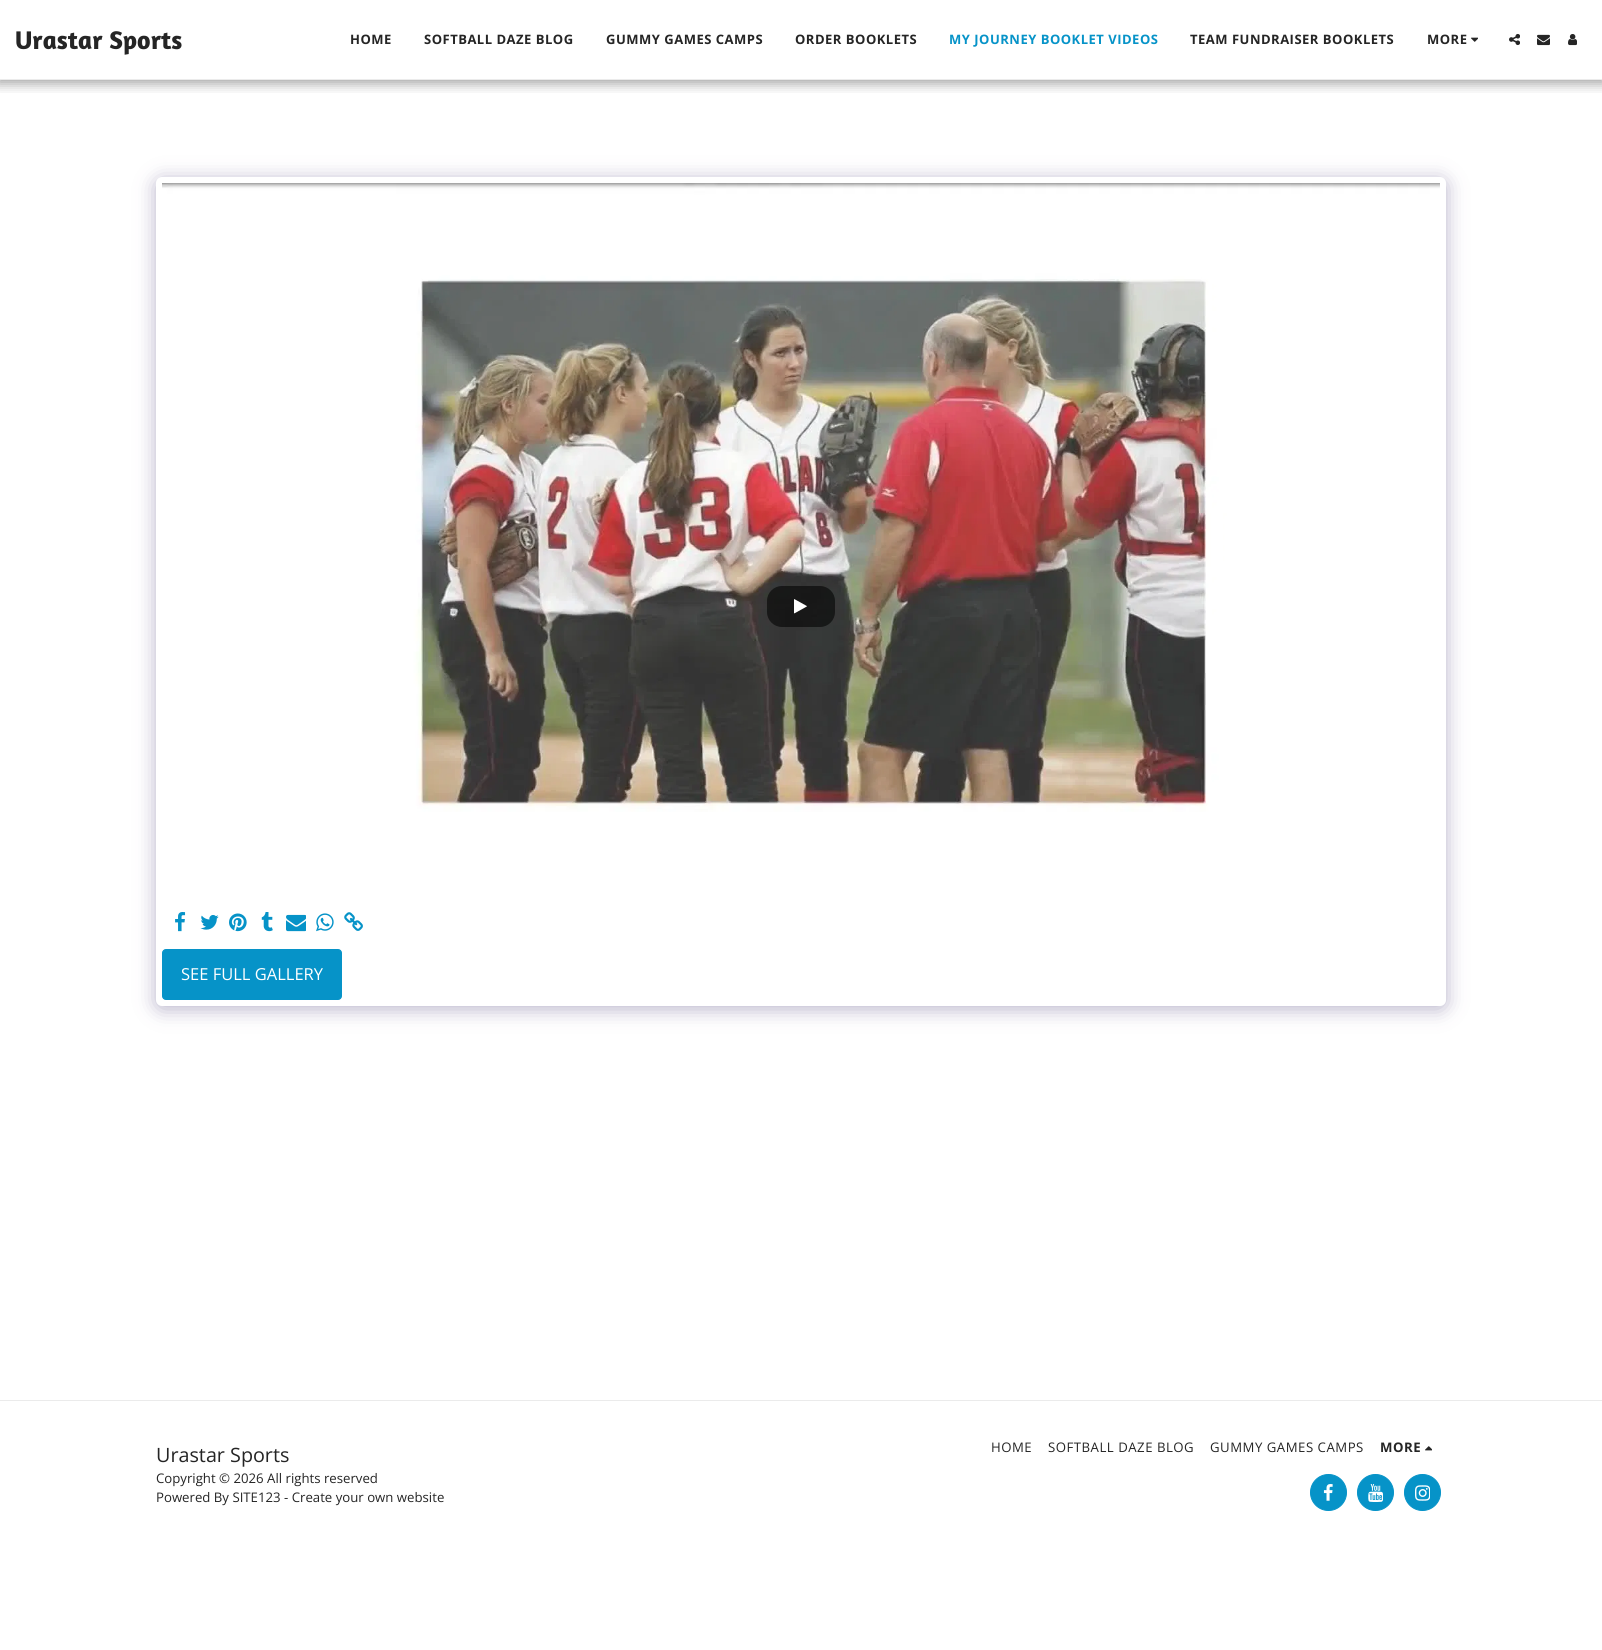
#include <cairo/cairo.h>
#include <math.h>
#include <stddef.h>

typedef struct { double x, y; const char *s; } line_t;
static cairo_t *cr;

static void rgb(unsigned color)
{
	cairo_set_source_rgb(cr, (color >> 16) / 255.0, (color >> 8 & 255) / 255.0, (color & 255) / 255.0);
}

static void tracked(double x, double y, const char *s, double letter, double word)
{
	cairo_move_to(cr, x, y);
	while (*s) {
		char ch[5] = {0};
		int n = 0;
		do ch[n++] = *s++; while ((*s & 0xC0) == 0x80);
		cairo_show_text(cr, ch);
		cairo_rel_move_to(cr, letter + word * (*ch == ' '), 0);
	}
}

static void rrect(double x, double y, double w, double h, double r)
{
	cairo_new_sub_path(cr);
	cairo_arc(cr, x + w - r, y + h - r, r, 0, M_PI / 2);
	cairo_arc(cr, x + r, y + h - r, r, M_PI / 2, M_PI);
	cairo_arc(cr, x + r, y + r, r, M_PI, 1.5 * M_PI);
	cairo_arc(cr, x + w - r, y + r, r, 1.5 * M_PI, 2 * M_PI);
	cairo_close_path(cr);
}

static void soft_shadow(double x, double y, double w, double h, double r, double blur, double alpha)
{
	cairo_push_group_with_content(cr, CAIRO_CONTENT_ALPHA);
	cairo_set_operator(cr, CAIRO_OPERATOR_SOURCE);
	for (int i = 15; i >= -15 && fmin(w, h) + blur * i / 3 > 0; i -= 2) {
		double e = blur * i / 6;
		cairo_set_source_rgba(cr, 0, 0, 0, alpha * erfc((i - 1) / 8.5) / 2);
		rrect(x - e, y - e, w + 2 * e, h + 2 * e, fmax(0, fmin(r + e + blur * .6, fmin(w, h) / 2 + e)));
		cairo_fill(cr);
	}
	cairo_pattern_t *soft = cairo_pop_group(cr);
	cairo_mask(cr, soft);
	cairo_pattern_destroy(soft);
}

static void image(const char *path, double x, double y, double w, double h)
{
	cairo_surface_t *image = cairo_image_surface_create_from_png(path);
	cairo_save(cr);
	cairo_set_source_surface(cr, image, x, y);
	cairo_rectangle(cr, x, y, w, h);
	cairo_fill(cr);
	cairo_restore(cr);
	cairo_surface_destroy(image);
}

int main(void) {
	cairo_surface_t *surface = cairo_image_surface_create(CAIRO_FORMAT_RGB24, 1602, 1650);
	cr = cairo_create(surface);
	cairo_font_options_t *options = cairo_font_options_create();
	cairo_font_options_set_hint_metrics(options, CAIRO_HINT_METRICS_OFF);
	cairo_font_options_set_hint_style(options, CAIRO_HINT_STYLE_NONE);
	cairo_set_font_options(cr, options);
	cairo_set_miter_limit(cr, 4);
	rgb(0xffffff);
	cairo_paint(cr);
	cairo_save(cr);
	cairo_rectangle(cr, 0, 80, 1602, 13);
	cairo_clip(cr);
	rgb(0x000000);
	soft_shadow(-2, 0, 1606, 84, 0, 6, 0.35);
	cairo_restore(cr);
	rgb(0xebebeb);
	cairo_rectangle(cr, 0, 79, 1602, 1);
	cairo_fill(cr);
	image("img/1.png", 1471, 37, 7, 5);
	image("img/2.png", 1509, 33, 11, 13);
	image("img/3.png", 1537, 34, 13, 12);
	image("img/4.png", 1568, 34, 9, 12);
	rgb(0x4d3f7a);
	soft_shadow(156, 180, 1290, 829, 6, 10, 0.4);
	rgb(0xffffff);
	rrect(156, 177, 1290, 829, 6);
	cairo_fill(cr);
	image("img/5.png", 162, 183, 1278, 629);
	cairo_set_source_rgba(cr, 0, 0, 0, 0.57);
	rrect(767, 586, 68, 41, 15);
	cairo_fill(cr);
	image("img/6.png", 794, 599, 13, 15);
	image("img/7.png", 175, 912, 11, 20);
	image("img/8.png", 200, 915, 19, 15);
	image("img/9.png", 229, 913, 18, 19);
	image("img/10.png", 261, 912, 12, 20);
	image("img/11.png", 286, 914, 20, 18);
	image("img/12.png", 316, 913, 18, 19);
	image("img/13.png", 344, 912, 19, 19);
	rgb(0x0693c8);
	rrect(162.5, 949.5, 179, 50, 3.5);
	cairo_fill_preserve(cr);
	cairo_set_line_width(cr, 1);
	cairo_stroke(cr);
	rgb(0xebebeb);
	cairo_rectangle(cr, 0, 1400, 1602, 1);
	cairo_fill(cr);
	image("img/14.png", 1425, 1446, 7, 5);
	rgb(0x0693c8);
	cairo_arc(cr, 1328.5, 1492.5, 18, 0, 2 * M_PI);
	cairo_fill_preserve(cr);
	cairo_stroke(cr);
	image("img/15.png", 1323, 1484, 10, 17);
	cairo_arc(cr, 1375.5, 1492.5, 18, 0, 2 * M_PI);
	cairo_fill_preserve(cr);
	cairo_stroke(cr);
	image("img/16.png", 1368, 1484, 15, 18);
	cairo_arc(cr, 1422.5, 1492.5, 18, 0, 2 * M_PI);
	cairo_fill_preserve(cr);
	cairo_stroke(cr);
	image("img/17.png", 1415, 1485, 15, 16);
	cairo_select_font_face(cr, "Amaranth", CAIRO_FONT_SLANT_NORMAL, CAIRO_FONT_WEIGHT_BOLD);
	cairo_set_font_size(cr, 26);
	rgb(0x252525);
	cairo_move_to(cr, 15, 49);
	cairo_show_text(cr, "Urastar Sports");
	cairo_select_font_face(cr, "Open Sans", CAIRO_FONT_SLANT_NORMAL, CAIRO_FONT_WEIGHT_BOLD);
	cairo_set_font_size(cr, 13);
	{
		static const line_t items[] = {
			{350, 44, "HOME"},
			{424, 44, "SOFTBALL DAZE BLOG"},
			{606, 44, "GUMMY GAMES CAMPS"},
			{795, 44, "ORDER BOOKLETS"},
		};
		for (size_t i = 0; i < sizeof items / sizeof *items; i++) {
			tracked(items[i].x, items[i].y, items[i].s, 0.5, 0);
		}
	}
	rgb(0x0693c8);
	tracked(949, 44, "MY JOURNEY BOOKLET VIDEOS", 0.5, 0);
	rgb(0x252525);
	tracked(1190, 44, "TEAM FUNDRAISER BOOKLETS", 0.5, 0);
	tracked(1427, 44, "MORE", 0.5, 0);
	cairo_select_font_face(cr, "Open Sans", CAIRO_FONT_SLANT_NORMAL, CAIRO_FONT_WEIGHT_NORMAL);
	cairo_set_font_size(cr, 16.5);
	rgb(0xffffff);
	cairo_move_to(cr, 181, 980);
	cairo_show_text(cr, "SEE FULL GALLERY");
	cairo_set_font_size(cr, 19.75);
	rgb(0x252525);
	cairo_move_to(cr, 156, 1462);
	cairo_show_text(cr, "Urastar Sports");
	cairo_set_font_size(cr, 13.2);
	cairo_move_to(cr, 156, 1483);
	cairo_show_text(cr, "Copyright © 2026 All rights reserved");
	cairo_move_to(cr, 156, 1502);
	cairo_show_text(cr, "Powered By SITE123 - Create your own website");
	{
		static const line_t items[] = {
			{991, 1452, "HOME"},
			{1048, 1452, "SOFTBALL DAZE BLOG"},
			{1210, 1452, "GUMMY GAMES CAMPS"},
		};
		for (size_t i = 0; i < sizeof items / sizeof *items; i++) {
			tracked(items[i].x, items[i].y, items[i].s, 0.5, 0);
		}
	}
	cairo_select_font_face(cr, "Open Sans", CAIRO_FONT_SLANT_NORMAL, CAIRO_FONT_WEIGHT_BOLD);
	tracked(1380, 1452, "MORE", 0.5, 0);
	cairo_surface_write_to_png(surface, "page.png");
	cairo_font_options_destroy(options);
	cairo_destroy(cr);
	cairo_surface_destroy(surface);
	return 0;
}
